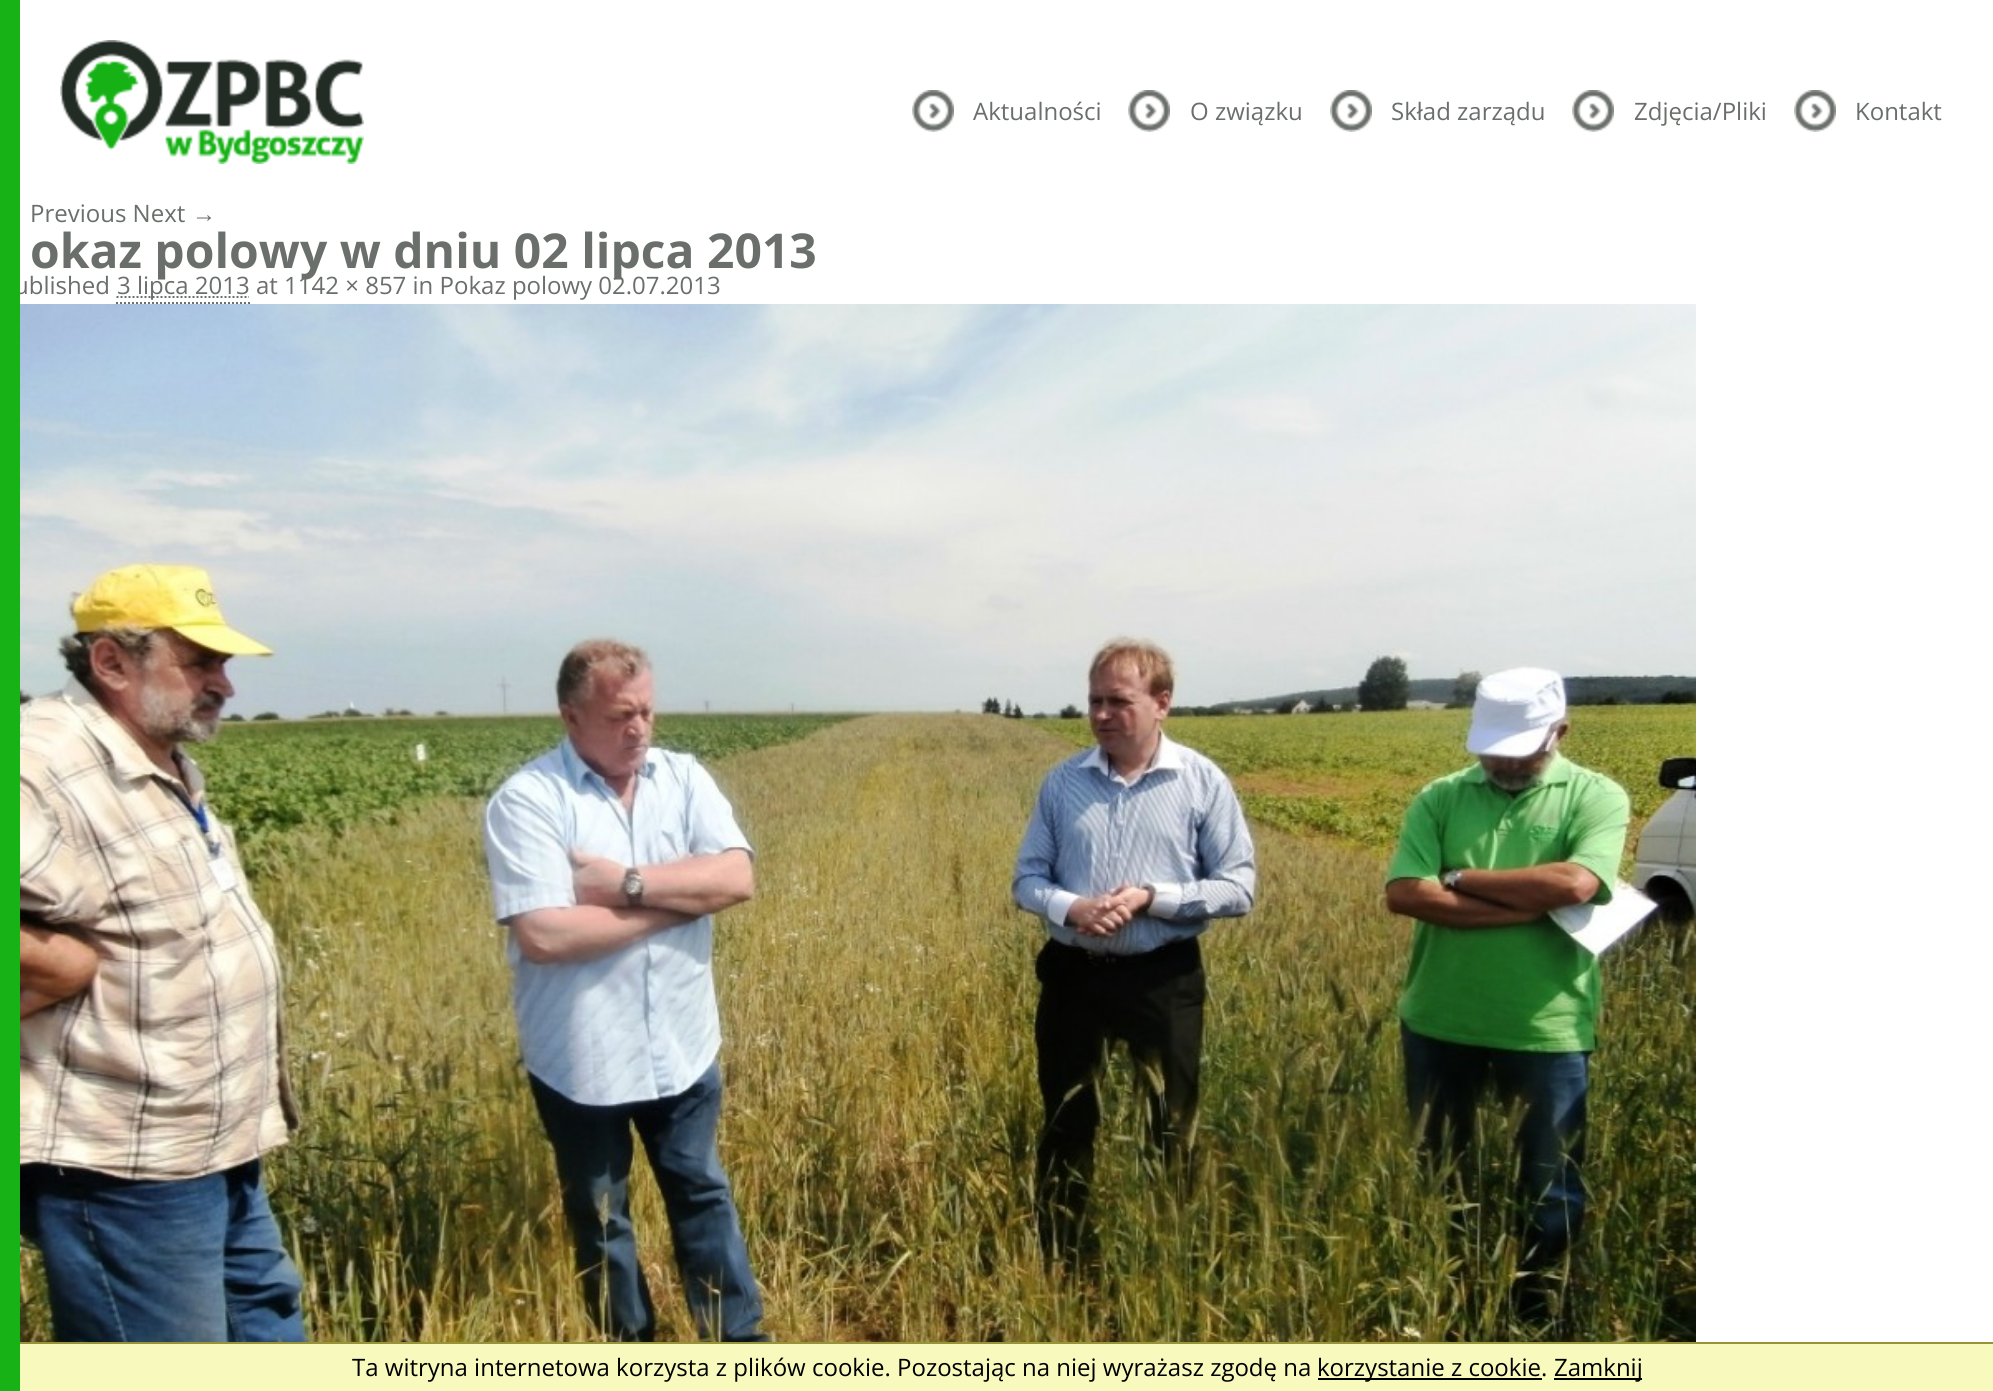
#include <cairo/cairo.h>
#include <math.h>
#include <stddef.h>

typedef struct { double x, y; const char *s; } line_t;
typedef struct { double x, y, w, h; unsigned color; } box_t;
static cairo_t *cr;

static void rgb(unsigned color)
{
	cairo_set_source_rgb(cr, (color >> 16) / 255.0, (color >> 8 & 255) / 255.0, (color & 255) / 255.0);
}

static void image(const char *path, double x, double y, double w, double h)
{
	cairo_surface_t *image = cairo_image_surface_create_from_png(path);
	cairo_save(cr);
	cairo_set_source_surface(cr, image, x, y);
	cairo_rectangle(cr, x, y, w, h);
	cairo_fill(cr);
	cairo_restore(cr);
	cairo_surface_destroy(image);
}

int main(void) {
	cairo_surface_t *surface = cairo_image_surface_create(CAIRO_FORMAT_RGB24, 1993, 1391);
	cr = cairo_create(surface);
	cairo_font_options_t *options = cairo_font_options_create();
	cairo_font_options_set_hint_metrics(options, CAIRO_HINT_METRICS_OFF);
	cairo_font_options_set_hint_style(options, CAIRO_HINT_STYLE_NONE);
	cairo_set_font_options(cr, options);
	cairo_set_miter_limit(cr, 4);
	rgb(0xffffff);
	cairo_paint(cr);
	image("img/1.png", 60, 40, 304, 124);
	image("img/2.png", 912, 90, 42, 42);
	image("img/2.png", 1128, 90, 42, 42);
	image("img/2.png", 1330, 90, 42, 42);
	image("img/2.png", 1572, 90, 42, 42);
	image("img/2.png", 1794, 90, 42, 42);
	cairo_new_path(cr);
	cairo_move_to(cr, 116, 303);
	cairo_line_to(cr, 250, 303);
	rgb(0x6a6f6b);
	cairo_set_dash(cr, (double[]){2, 2}, 2, 0);
	cairo_stroke(cr);
	cairo_new_path(cr);
	cairo_move_to(cr, 116.5, 297);
	cairo_line_to(cr, 249, 297);
	cairo_stroke(cr);
	image("img/3.png", 20, 304, 1676, 1038);
	{
		static const box_t items[] = {
			{20, 1344, 1973, 47, 0xf7f9bd},
			{20, 1342, 1973, 2, 0x969339},
			{1318, 1378, 224, 2, 0x000000},
			{1554, 1378, 88, 2, 0x000000},
		};
		for (size_t i = 0; i < sizeof items / sizeof *items; i++) {
			rgb(items[i].color);
			cairo_rectangle(cr, items[i].x, items[i].y, items[i].w, items[i].h);
			cairo_fill(cr);
		}
	}
	cairo_select_font_face(cr, "Open Sans", CAIRO_FONT_SLANT_NORMAL, CAIRO_FONT_WEIGHT_NORMAL);
	cairo_set_font_size(cr, 24);
	rgb(0x6a6f6b);
	{
		static const line_t items[] = {
			{973, 120, "Aktualności"},
			{1190, 120, "O związku"},
			{1391, 120, "Skład zarządu"},
			{1634, 120, "Zdjęcia/Pliki"},
			{1855, 120, "Kontakt"},
			{30, 222, "Previous Next"},
		};
		for (size_t i = 0; i < sizeof items / sizeof *items; i++) {
			cairo_move_to(cr, items[i].x, items[i].y);
			cairo_show_text(cr, items[i].s);
		}
	}
	cairo_select_font_face(cr, "Liberation Sans", CAIRO_FONT_SLANT_NORMAL, CAIRO_FONT_WEIGHT_NORMAL);
	cairo_move_to(cr, 192, 222);
	cairo_show_text(cr, "→");
	cairo_select_font_face(cr, "Open Sans", CAIRO_FONT_SLANT_NORMAL, CAIRO_FONT_WEIGHT_BOLD);
	cairo_set_font_size(cr, 48);
	cairo_move_to(cr, 30, 268);
	cairo_show_text(cr, "okaz polowy w dniu 02 lipca 2013");
	cairo_select_font_face(cr, "Open Sans", CAIRO_FONT_SLANT_NORMAL, CAIRO_FONT_WEIGHT_NORMAL);
	cairo_set_font_size(cr, 24);
	cairo_move_to(cr, 14, 294);
	cairo_show_text(cr, "ublished");
	rgb(0x17b216);
	cairo_rectangle(cr, 0, 0, 20, 1391);
	cairo_fill(cr);
	rgb(0x6a6f6b);
	cairo_move_to(cr, 117, 294);
	cairo_show_text(cr, "3 lipca 2013 at 1142 × 857 in Pokaz polowy 02.07.2013");
	rgb(0x000000);
	{
		static const line_t items[] = {
			{352, 1376, "Ta witryna internetowa korzysta z plików cookie. Pozostając na niej wyrażasz zgodę na"},
			{1317, 1376, "korzystanie z cookie."},
			{1554, 1376, "Zamknij"},
		};
		for (size_t i = 0; i < sizeof items / sizeof *items; i++) {
			cairo_move_to(cr, items[i].x, items[i].y);
			cairo_show_text(cr, items[i].s);
		}
	}
	cairo_surface_write_to_png(surface, "page.png");
	cairo_font_options_destroy(options);
	cairo_destroy(cr);
	cairo_surface_destroy(surface);
	return 0;
}
